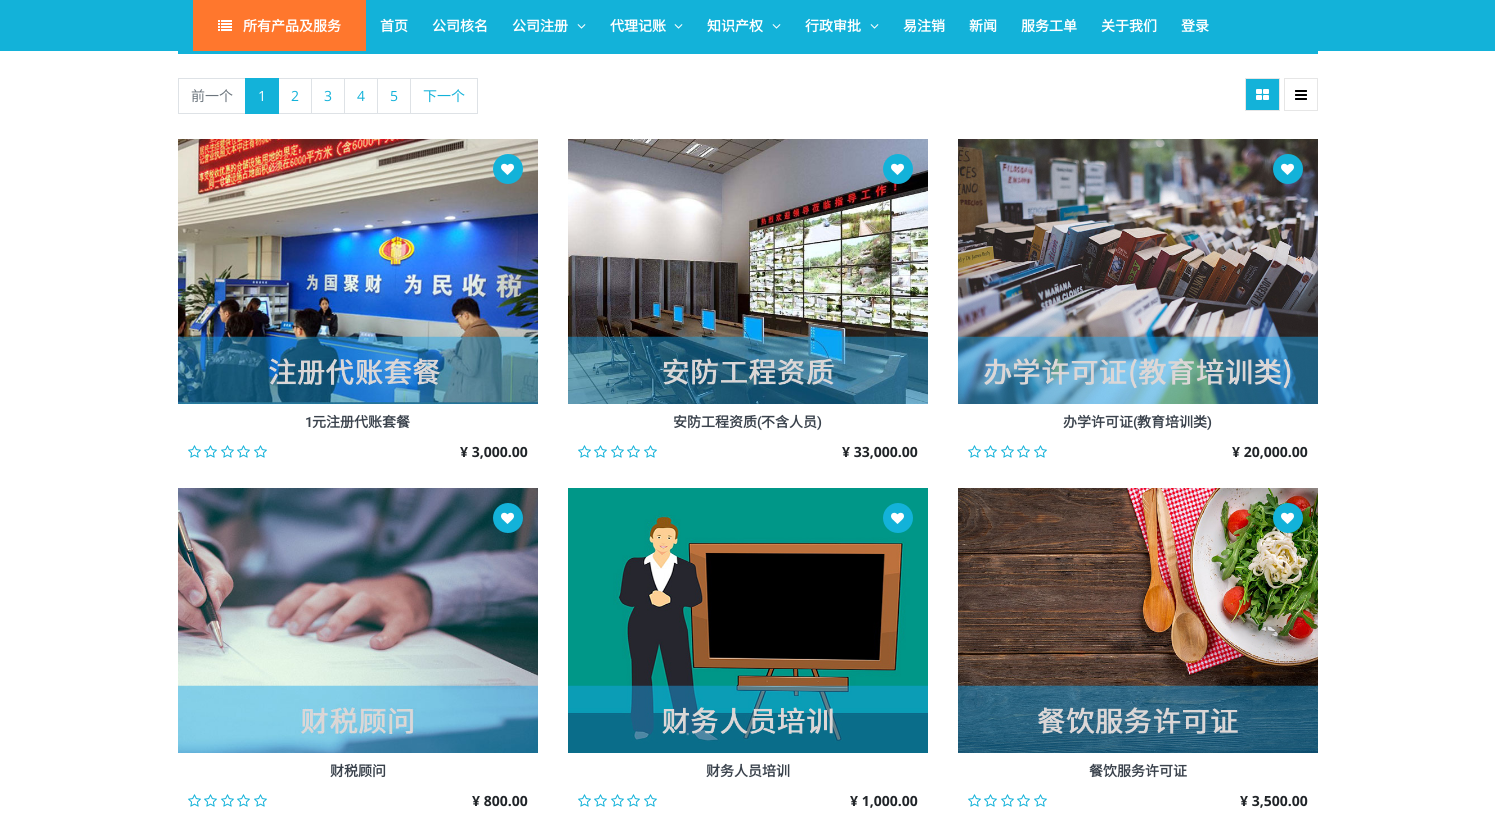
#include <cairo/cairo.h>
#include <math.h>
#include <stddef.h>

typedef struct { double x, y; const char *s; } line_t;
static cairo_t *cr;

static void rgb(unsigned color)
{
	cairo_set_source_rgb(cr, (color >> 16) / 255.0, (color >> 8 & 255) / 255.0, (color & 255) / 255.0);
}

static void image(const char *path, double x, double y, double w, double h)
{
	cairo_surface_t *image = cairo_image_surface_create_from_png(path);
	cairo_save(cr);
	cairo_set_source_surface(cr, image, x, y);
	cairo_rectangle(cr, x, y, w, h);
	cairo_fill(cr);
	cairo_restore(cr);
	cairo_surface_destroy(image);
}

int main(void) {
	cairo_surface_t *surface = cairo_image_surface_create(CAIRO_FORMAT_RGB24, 1495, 837);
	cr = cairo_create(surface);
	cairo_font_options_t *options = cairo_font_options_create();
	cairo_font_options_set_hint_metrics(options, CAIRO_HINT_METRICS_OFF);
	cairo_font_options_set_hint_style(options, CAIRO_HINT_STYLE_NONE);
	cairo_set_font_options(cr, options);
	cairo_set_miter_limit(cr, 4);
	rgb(0xffffff);
	cairo_paint(cr);
	rgb(0x13b2d9);
	cairo_rectangle(cr, 0, 0, 1495, 51);
	cairo_fill(cr);
	rgb(0xff772d);
	cairo_rectangle(cr, 193, 0, 173, 51);
	cairo_fill(cr);
	image("img/1.png", 218, 20, 14, 11);
	image("img/2.png", 577, 24, 9, 5);
	image("img/2.png", 674, 24, 9, 5);
	image("img/2.png", 772, 24, 9, 5);
	image("img/2.png", 870, 24, 9, 5);
	rgb(0x13b2d9);
	cairo_rectangle(cr, 178, 51, 1140, 3);
	cairo_fill(cr);
	cairo_rectangle(cr, 178.5, 78.5, 67, 35);
	rgb(0xdee2e6);
	cairo_set_line_width(cr, 1);
	cairo_stroke(cr);
	cairo_rectangle(cr, 278.5, 78.5, 33, 35);
	cairo_stroke(cr);
	rgb(0x13b2d9);
	cairo_rectangle(cr, 245, 78, 34, 36);
	cairo_fill(cr);
	cairo_rectangle(cr, 311.5, 78.5, 33, 35);
	rgb(0xdee2e6);
	cairo_stroke(cr);
	cairo_rectangle(cr, 344.5, 78.5, 33, 35);
	cairo_stroke(cr);
	cairo_rectangle(cr, 377.5, 78.5, 33, 35);
	cairo_stroke(cr);
	cairo_rectangle(cr, 410.5, 78.5, 67, 35);
	cairo_stroke(cr);
	rgb(0x13b2d9);
	cairo_rectangle(cr, 1245.5, 78.5, 34, 32);
	cairo_fill_preserve(cr);
	rgb(0xe6e6e6);
	cairo_stroke(cr);
	image("img/3.png", 1256, 89, 13, 11);
	cairo_rectangle(cr, 1284.5, 78.5, 33, 32);
	cairo_stroke(cr);
	image("img/4.png", 1295, 90, 12, 10);
	image("img/5.png", 178, 139, 360, 265);
	rgb(0x13b2d9);
	cairo_arc(cr, 508, 169, 14, 0, 2 * M_PI);
	cairo_fill_preserve(cr);
	cairo_set_line_width(cr, 2);
	cairo_stroke(cr);
	image("img/6.png", 501, 163, 13, 12);
	image("img/7.png", 188, 445, 13, 13);
	image("img/7.png", 204, 445, 13, 13);
	image("img/7.png", 221, 445, 13, 13);
	image("img/7.png", 237, 445, 13, 13);
	image("img/7.png", 254, 445, 13, 13);
	image("img/8.png", 568, 139, 360, 265);
	cairo_arc(cr, 898, 169, 14, 0, 2 * M_PI);
	cairo_fill_preserve(cr);
	cairo_stroke(cr);
	image("img/6.png", 891, 163, 13, 12);
	image("img/7.png", 578, 445, 13, 13);
	image("img/7.png", 594, 445, 13, 13);
	image("img/7.png", 611, 445, 13, 13);
	image("img/7.png", 627, 445, 13, 13);
	image("img/7.png", 644, 445, 13, 13);
	image("img/9.png", 958, 139, 360, 265);
	cairo_arc(cr, 1288, 169, 14, 0, 2 * M_PI);
	cairo_fill_preserve(cr);
	cairo_stroke(cr);
	image("img/6.png", 1281, 163, 13, 12);
	image("img/7.png", 968, 445, 13, 13);
	image("img/7.png", 984, 445, 13, 13);
	image("img/7.png", 1001, 445, 13, 13);
	image("img/7.png", 1017, 445, 13, 13);
	image("img/7.png", 1034, 445, 13, 13);
	image("img/10.png", 178, 488, 360, 265);
	cairo_arc(cr, 508, 518, 14, 0, 2 * M_PI);
	cairo_fill_preserve(cr);
	cairo_stroke(cr);
	image("img/6.png", 501, 512, 13, 12);
	image("img/7.png", 188, 794, 13, 13);
	image("img/7.png", 204, 794, 13, 13);
	image("img/7.png", 221, 794, 13, 13);
	image("img/7.png", 237, 794, 13, 13);
	image("img/7.png", 254, 794, 13, 13);
	image("img/11.png", 568, 488, 360, 265);
	cairo_arc(cr, 898, 518, 14, 0, 2 * M_PI);
	cairo_fill_preserve(cr);
	cairo_stroke(cr);
	image("img/6.png", 891, 512, 13, 12);
	image("img/7.png", 578, 794, 13, 13);
	image("img/7.png", 594, 794, 13, 13);
	image("img/7.png", 611, 794, 13, 13);
	image("img/7.png", 627, 794, 13, 13);
	image("img/7.png", 644, 794, 13, 13);
	image("img/12.png", 958, 488, 360, 265);
	cairo_arc(cr, 1288, 518, 14, 0, 2 * M_PI);
	cairo_fill_preserve(cr);
	cairo_stroke(cr);
	image("img/6.png", 1281, 512, 13, 12);
	image("img/7.png", 968, 794, 13, 13);
	image("img/7.png", 984, 794, 13, 13);
	image("img/7.png", 1001, 794, 13, 13);
	image("img/7.png", 1017, 794, 13, 13);
	image("img/7.png", 1034, 794, 13, 13);
	cairo_select_font_face(cr, "Noto Sans CJK SC", CAIRO_FONT_SLANT_NORMAL, CAIRO_FONT_WEIGHT_BOLD);
	cairo_set_font_size(cr, 14);
	rgb(0xffffff);
	{
		static const line_t items[] = {
			{243, 31, "所有产品及服务"},
			{380, 31, "首页"},
			{432, 31, "公司核名"},
			{512, 31, "公司注册"},
			{610, 31, "代理记账"},
			{707, 31, "知识产权"},
			{805, 31, "行政审批"},
			{903, 31, "易注销"},
			{969, 31, "新闻"},
			{1021, 31, "服务工单"},
			{1101, 31, "关于我们"},
			{1181, 31, "登录"},
		};
		for (size_t i = 0; i < sizeof items / sizeof *items; i++) {
			cairo_move_to(cr, items[i].x, items[i].y);
			cairo_show_text(cr, items[i].s);
		}
	}
	cairo_select_font_face(cr, "Noto Sans CJK SC", CAIRO_FONT_SLANT_NORMAL, CAIRO_FONT_WEIGHT_NORMAL);
	rgb(0x6c757d);
	cairo_move_to(cr, 191, 101);
	cairo_show_text(cr, "前一个");
	cairo_select_font_face(cr, "Open Sans", CAIRO_FONT_SLANT_NORMAL, CAIRO_FONT_WEIGHT_NORMAL);
	rgb(0xffffff);
	cairo_move_to(cr, 258, 101);
	cairo_show_text(cr, "1");
	rgb(0x13b2d9);
	{
		static const line_t items[] = {
			{291, 101, "2"},
			{324, 101, "3"},
			{357, 101, "4"},
			{390, 101, "5"},
		};
		for (size_t i = 0; i < sizeof items / sizeof *items; i++) {
			cairo_move_to(cr, items[i].x, items[i].y);
			cairo_show_text(cr, items[i].s);
		}
	}
	cairo_select_font_face(cr, "Noto Sans CJK SC", CAIRO_FONT_SLANT_NORMAL, CAIRO_FONT_WEIGHT_NORMAL);
	cairo_move_to(cr, 423, 101);
	cairo_show_text(cr, "下一个");
	cairo_select_font_face(cr, "Roboto SemiBold", CAIRO_FONT_SLANT_NORMAL, CAIRO_FONT_WEIGHT_NORMAL);
	rgb(0x3a424c);
	cairo_move_to(cr, 305, 427);
	cairo_show_text(cr, "1");
	cairo_select_font_face(cr, "Noto Sans CJK SC", CAIRO_FONT_SLANT_NORMAL, CAIRO_FONT_WEIGHT_BOLD);
	cairo_move_to(cr, 312, 427);
	cairo_show_text(cr, "元注册代账套餐");
	cairo_select_font_face(cr, "Open Sans", CAIRO_FONT_SLANT_NORMAL, CAIRO_FONT_WEIGHT_BOLD);
	rgb(0x212529);
	cairo_move_to(cr, 460, 457);
	cairo_show_text(cr, "¥ 3,000.00");
	cairo_select_font_face(cr, "Noto Sans CJK SC", CAIRO_FONT_SLANT_NORMAL, CAIRO_FONT_WEIGHT_BOLD);
	rgb(0x3a424c);
	cairo_move_to(cr, 673, 427);
	cairo_show_text(cr, "安防工程资质");
	cairo_select_font_face(cr, "Roboto SemiBold", CAIRO_FONT_SLANT_NORMAL, CAIRO_FONT_WEIGHT_NORMAL);
	cairo_move_to(cr, 757, 427);
	cairo_show_text(cr, "(");
	cairo_select_font_face(cr, "Noto Sans CJK SC", CAIRO_FONT_SLANT_NORMAL, CAIRO_FONT_WEIGHT_BOLD);
	cairo_move_to(cr, 761, 427);
	cairo_show_text(cr, "不含人员");
	cairo_select_font_face(cr, "Roboto SemiBold", CAIRO_FONT_SLANT_NORMAL, CAIRO_FONT_WEIGHT_NORMAL);
	cairo_move_to(cr, 817, 427);
	cairo_show_text(cr, ")");
	cairo_select_font_face(cr, "Open Sans", CAIRO_FONT_SLANT_NORMAL, CAIRO_FONT_WEIGHT_BOLD);
	rgb(0x212529);
	cairo_move_to(cr, 842, 457);
	cairo_show_text(cr, "¥ 33,000.00");
	cairo_select_font_face(cr, "Noto Sans CJK SC", CAIRO_FONT_SLANT_NORMAL, CAIRO_FONT_WEIGHT_BOLD);
	rgb(0x3a424c);
	cairo_move_to(cr, 1063, 427);
	cairo_show_text(cr, "办学许可证");
	cairo_select_font_face(cr, "Roboto SemiBold", CAIRO_FONT_SLANT_NORMAL, CAIRO_FONT_WEIGHT_NORMAL);
	cairo_move_to(cr, 1133, 427);
	cairo_show_text(cr, "(");
	cairo_select_font_face(cr, "Noto Sans CJK SC", CAIRO_FONT_SLANT_NORMAL, CAIRO_FONT_WEIGHT_BOLD);
	cairo_move_to(cr, 1137, 427);
	cairo_show_text(cr, "教育培训类");
	cairo_select_font_face(cr, "Roboto SemiBold", CAIRO_FONT_SLANT_NORMAL, CAIRO_FONT_WEIGHT_NORMAL);
	cairo_move_to(cr, 1207, 427);
	cairo_show_text(cr, ")");
	cairo_select_font_face(cr, "Open Sans", CAIRO_FONT_SLANT_NORMAL, CAIRO_FONT_WEIGHT_BOLD);
	rgb(0x212529);
	cairo_move_to(cr, 1232, 457);
	cairo_show_text(cr, "¥ 20,000.00");
	cairo_select_font_face(cr, "Noto Sans CJK SC", CAIRO_FONT_SLANT_NORMAL, CAIRO_FONT_WEIGHT_BOLD);
	rgb(0x3a424c);
	cairo_move_to(cr, 330, 776);
	cairo_show_text(cr, "财税顾问");
	cairo_select_font_face(cr, "Open Sans", CAIRO_FONT_SLANT_NORMAL, CAIRO_FONT_WEIGHT_BOLD);
	rgb(0x212529);
	cairo_move_to(cr, 472, 806);
	cairo_show_text(cr, "¥ 800.00");
	cairo_select_font_face(cr, "Noto Sans CJK SC", CAIRO_FONT_SLANT_NORMAL, CAIRO_FONT_WEIGHT_BOLD);
	rgb(0x3a424c);
	cairo_move_to(cr, 706, 776);
	cairo_show_text(cr, "财务人员培训");
	cairo_select_font_face(cr, "Open Sans", CAIRO_FONT_SLANT_NORMAL, CAIRO_FONT_WEIGHT_BOLD);
	rgb(0x212529);
	cairo_move_to(cr, 850, 806);
	cairo_show_text(cr, "¥ 1,000.00");
	cairo_select_font_face(cr, "Noto Sans CJK SC", CAIRO_FONT_SLANT_NORMAL, CAIRO_FONT_WEIGHT_BOLD);
	rgb(0x3a424c);
	cairo_move_to(cr, 1089, 776);
	cairo_show_text(cr, "餐饮服务许可证");
	cairo_select_font_face(cr, "Open Sans", CAIRO_FONT_SLANT_NORMAL, CAIRO_FONT_WEIGHT_BOLD);
	rgb(0x212529);
	cairo_move_to(cr, 1240, 806);
	cairo_show_text(cr, "¥ 3,500.00");
	cairo_surface_write_to_png(surface, "page.png");
	cairo_font_options_destroy(options);
	cairo_destroy(cr);
	cairo_surface_destroy(surface);
	return 0;
}
